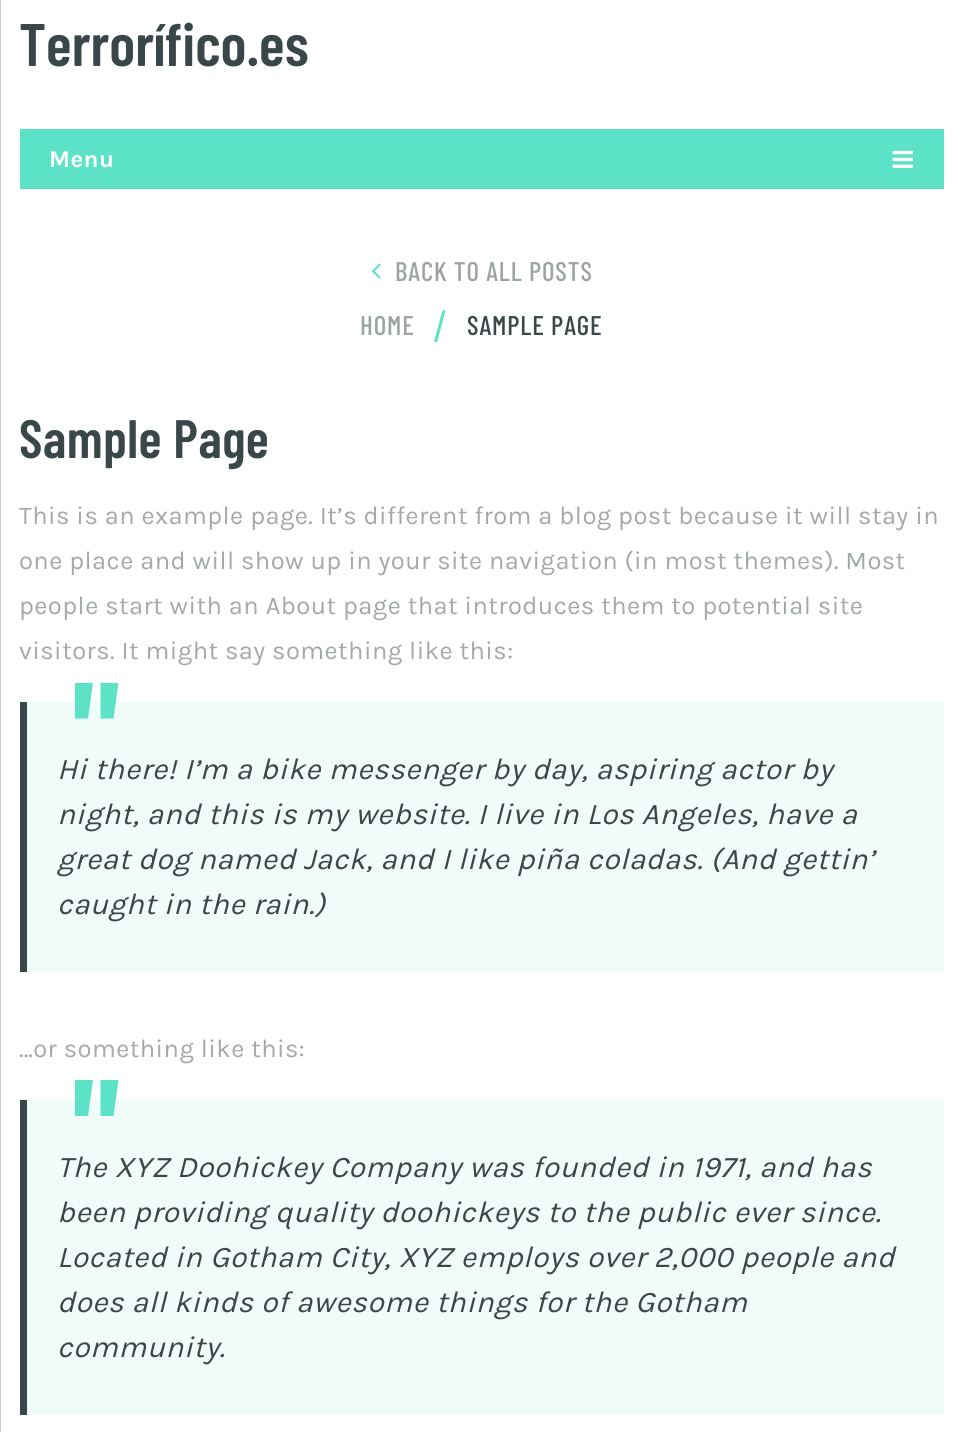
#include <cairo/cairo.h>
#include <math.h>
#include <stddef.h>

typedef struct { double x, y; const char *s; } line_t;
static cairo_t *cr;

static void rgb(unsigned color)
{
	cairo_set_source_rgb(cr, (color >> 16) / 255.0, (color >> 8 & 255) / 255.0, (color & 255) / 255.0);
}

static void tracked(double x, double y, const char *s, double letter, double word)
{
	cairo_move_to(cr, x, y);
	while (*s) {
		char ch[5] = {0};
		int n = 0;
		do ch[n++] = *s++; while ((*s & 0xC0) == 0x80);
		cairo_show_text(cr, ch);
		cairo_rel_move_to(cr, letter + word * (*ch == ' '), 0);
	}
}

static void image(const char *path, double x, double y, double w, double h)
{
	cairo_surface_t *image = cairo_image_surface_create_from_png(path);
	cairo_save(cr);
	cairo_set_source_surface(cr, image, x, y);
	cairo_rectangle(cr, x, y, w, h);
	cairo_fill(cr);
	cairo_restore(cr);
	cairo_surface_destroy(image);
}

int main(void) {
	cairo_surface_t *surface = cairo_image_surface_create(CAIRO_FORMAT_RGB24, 963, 1432);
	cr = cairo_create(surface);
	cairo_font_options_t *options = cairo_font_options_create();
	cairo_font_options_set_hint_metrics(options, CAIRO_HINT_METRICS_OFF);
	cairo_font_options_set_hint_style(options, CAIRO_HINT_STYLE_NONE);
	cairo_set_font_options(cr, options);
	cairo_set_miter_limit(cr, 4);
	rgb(0xffffff);
	cairo_paint(cr);
	rgb(0xcccccc);
	cairo_rectangle(cr, 0, 0, 1, 1432);
	cairo_fill(cr);
	rgb(0x5ce2c7);
	cairo_rectangle(cr, 20, 129, 924, 60);
	cairo_fill(cr);
	image("img/1.png", 892, 150, 22, 18);
	image("img/2.png", 372, 263, 9, 16);
	rgb(0x3a4749);
	cairo_rectangle(cr, 20, 702, 7, 270);
	cairo_fill(cr);
	cairo_save(cr);
	cairo_rectangle(cr, 75, 683, 44, 36);
	cairo_clip(cr);
	rgb(0x5ce2c7);
	cairo_set_fill_rule(cr, CAIRO_FILL_RULE_EVEN_ODD);
	cairo_new_path(cr);
	cairo_move_to(cr, 75, 682.5);
	cairo_line_to(cr, 75, 718.5);
	cairo_line_to(cr, 88, 718.5);
	cairo_line_to(cr, 93, 682.5);
	cairo_close_path(cr);
	cairo_move_to(cr, 100.5, 682.5);
	cairo_line_to(cr, 100.5, 718.5);
	cairo_line_to(cr, 113.5, 718.5);
	cairo_line_to(cr, 118.5, 682.5);
	cairo_close_path(cr);
	cairo_fill(cr);
	cairo_restore(cr);
	cairo_set_source_rgba(cr, 0.361, 0.886, 0.78, 0.1);
	cairo_rectangle(cr, 27, 702, 917, 270);
	cairo_fill(cr);
	rgb(0x3a4749);
	cairo_rectangle(cr, 20, 1100, 7, 315);
	cairo_fill(cr);
	rgb(0x5ce2c7);
	cairo_set_fill_rule(cr, CAIRO_FILL_RULE_EVEN_ODD);
	cairo_new_path(cr);
	cairo_move_to(cr, 75, 1080);
	cairo_line_to(cr, 75, 1116);
	cairo_line_to(cr, 88, 1116);
	cairo_line_to(cr, 93, 1080);
	cairo_close_path(cr);
	cairo_move_to(cr, 100.5, 1080);
	cairo_line_to(cr, 100.5, 1116);
	cairo_line_to(cr, 113.5, 1116);
	cairo_line_to(cr, 118.5, 1080);
	cairo_close_path(cr);
	cairo_fill(cr);
	cairo_set_source_rgba(cr, 0.361, 0.886, 0.78, 0.1);
	cairo_rectangle(cr, 27, 1100, 917, 315);
	cairo_fill(cr);
	cairo_select_font_face(cr, "Barlow Condensed SemiBold", CAIRO_FONT_SLANT_NORMAL, CAIRO_FONT_WEIGHT_NORMAL);
	cairo_set_font_size(cr, 60);
	rgb(0x3a4749);
	cairo_move_to(cr, 19, 66);
	cairo_show_text(cr, "Terrorífico.es");
	cairo_select_font_face(cr, "Karla", CAIRO_FONT_SLANT_NORMAL, CAIRO_FONT_WEIGHT_BOLD);
	cairo_set_font_size(cr, 24);
	rgb(0xffffff);
	tracked(49, 167, "Menu", 0.43, 0);
	cairo_select_font_face(cr, "Barlow Condensed Medium", CAIRO_FONT_SLANT_NORMAL, CAIRO_FONT_WEIGHT_NORMAL);
	cairo_set_font_size(cr, 27);
	rgb(0x9da3a4);
	tracked(395, 281, "BACK TO ALL POSTS", 0.9, 0);
	tracked(360, 335, "HOME", 0.9, 0);
	cairo_select_font_face(cr, "Barlow Condensed", CAIRO_FONT_SLANT_NORMAL, CAIRO_FONT_WEIGHT_NORMAL);
	cairo_set_font_size(cr, 45);
	rgb(0x5ce2c7);
	tracked(433, 342, "/", 0.9, 0);
	cairo_select_font_face(cr, "Barlow Condensed Medium", CAIRO_FONT_SLANT_NORMAL, CAIRO_FONT_WEIGHT_NORMAL);
	cairo_set_font_size(cr, 27);
	rgb(0x3a4749);
	tracked(467, 335, "SAMPLE PAGE", 0.9, 0);
	cairo_select_font_face(cr, "Barlow Condensed SemiBold", CAIRO_FONT_SLANT_NORMAL, CAIRO_FONT_WEIGHT_NORMAL);
	cairo_set_font_size(cr, 54);
	tracked(19, 458, "Sample Page", 0.43, 0);
	cairo_select_font_face(cr, "Karla", CAIRO_FONT_SLANT_NORMAL, CAIRO_FONT_WEIGHT_NORMAL);
	cairo_set_font_size(cr, 25.5);
	rgb(0xa3a8a9);
	{
		static const line_t items[] = {
			{19, 524, "This is an example page. It’s different from a blog post because it will stay in"},
			{19, 569, "one place and will show up in your site navigation (in most themes). Most"},
			{19, 614, "people start with an About page that introduces them to potential site"},
			{19, 659, "visitors. It might say something like this:"},
		};
		for (size_t i = 0; i < sizeof items / sizeof *items; i++) {
			tracked(items[i].x, items[i].y, items[i].s, 0.43, 0);
		}
	}
	cairo_select_font_face(cr, "Karla", CAIRO_FONT_SLANT_ITALIC, CAIRO_FONT_WEIGHT_NORMAL);
	cairo_set_font_size(cr, 30);
	rgb(0x3a4749);
	{
		static const line_t items[] = {
			{57, 779, "Hi there! I’m a bike messenger by day, aspiring actor by"},
			{57, 824, "night, and this is my website. I live in Los Angeles, have a"},
			{57, 869, "great dog named Jack, and I like piña coladas. (And gettin’"},
			{57, 914, "caught in the rain.)"},
		};
		for (size_t i = 0; i < sizeof items / sizeof *items; i++) {
			tracked(items[i].x, items[i].y, items[i].s, 0.43, 0);
		}
	}
	cairo_select_font_face(cr, "Karla", CAIRO_FONT_SLANT_NORMAL, CAIRO_FONT_WEIGHT_NORMAL);
	cairo_set_font_size(cr, 25.5);
	rgb(0xa3a8a9);
	tracked(19, 1057, "…or something like this:", 0.43, 0);
	cairo_select_font_face(cr, "Karla", CAIRO_FONT_SLANT_ITALIC, CAIRO_FONT_WEIGHT_NORMAL);
	cairo_set_font_size(cr, 30);
	rgb(0x3a4749);
	{
		static const line_t items[] = {
			{57, 1177, "The XYZ Doohickey Company was founded in 1971, and has"},
			{57, 1222, "been providing quality doohickeys to the public ever since."},
			{57, 1267, "Located in Gotham City, XYZ employs over 2,000 people and"},
			{57, 1312, "does all kinds of awesome things for the Gotham"},
			{57, 1357, "community."},
		};
		for (size_t i = 0; i < sizeof items / sizeof *items; i++) {
			tracked(items[i].x, items[i].y, items[i].s, 0.43, 0);
		}
	}
	cairo_surface_write_to_png(surface, "page.png");
	cairo_font_options_destroy(options);
	cairo_destroy(cr);
	cairo_surface_destroy(surface);
	return 0;
}
